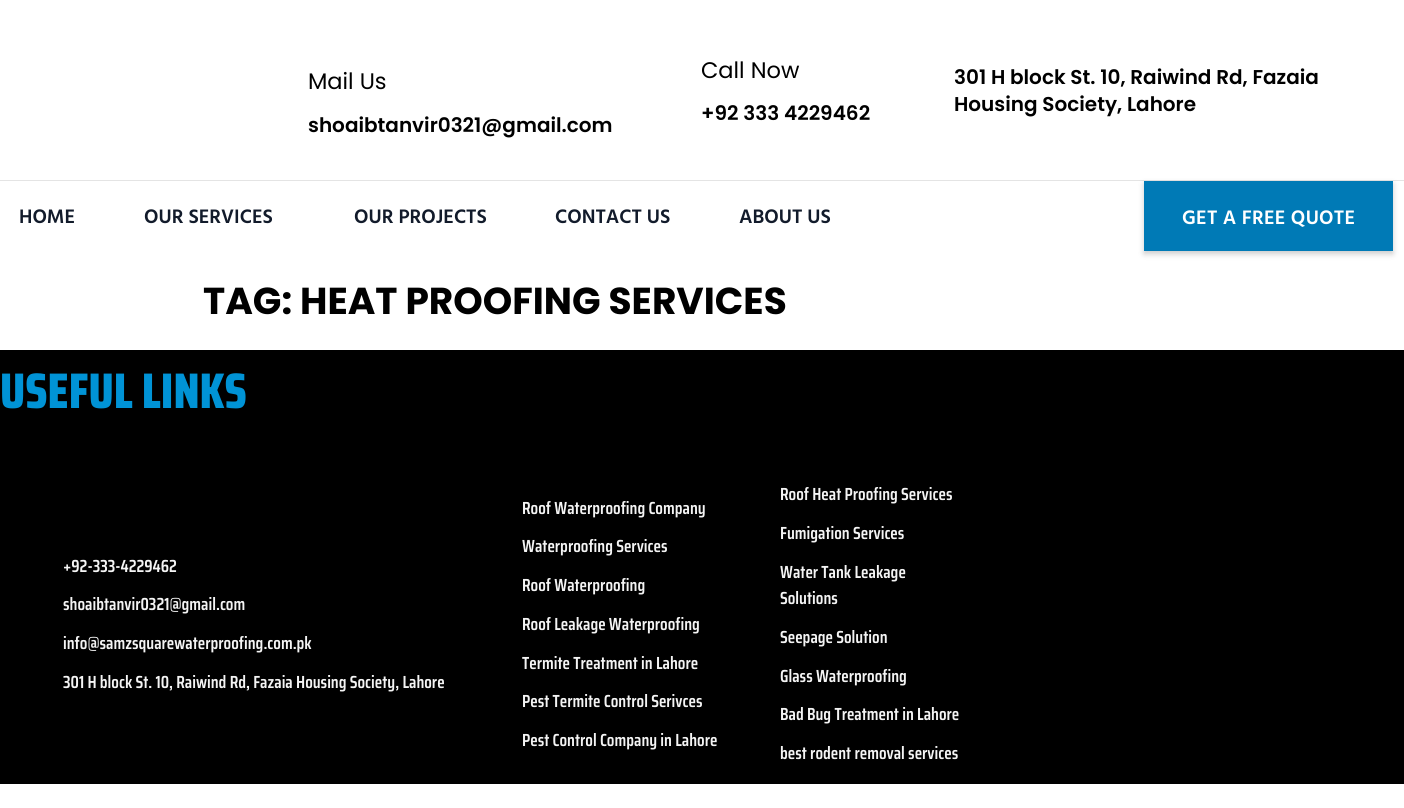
#include <cairo/cairo.h>
#include <math.h>
#include <stddef.h>

typedef struct { double x, y; const char *s; } line_t;
static cairo_t *cr;

static void rgb(unsigned color)
{
	cairo_set_source_rgb(cr, (color >> 16) / 255.0, (color >> 8 & 255) / 255.0, (color & 255) / 255.0);
}

static void tracked(double x, double y, const char *s, double letter, double word)
{
	cairo_move_to(cr, x, y);
	while (*s) {
		char ch[5] = {0};
		int n = 0;
		do ch[n++] = *s++; while ((*s & 0xC0) == 0x80);
		cairo_show_text(cr, ch);
		cairo_rel_move_to(cr, letter + word * (*ch == ' '), 0);
	}
}

static void rrect(double x, double y, double w, double h, double r)
{
	cairo_new_sub_path(cr);
	cairo_arc(cr, x + w - r, y + h - r, r, 0, M_PI / 2);
	cairo_arc(cr, x + r, y + h - r, r, M_PI / 2, M_PI);
	cairo_arc(cr, x + r, y + r, r, M_PI, 1.5 * M_PI);
	cairo_arc(cr, x + w - r, y + r, r, 1.5 * M_PI, 2 * M_PI);
	cairo_close_path(cr);
}

static void soft_shadow(double x, double y, double w, double h, double r, double blur, double alpha)
{
	cairo_push_group_with_content(cr, CAIRO_CONTENT_ALPHA);
	cairo_set_operator(cr, CAIRO_OPERATOR_SOURCE);
	for (int i = 15; i >= -15 && fmin(w, h) + blur * i / 3 > 0; i -= 2) {
		double e = blur * i / 6;
		cairo_set_source_rgba(cr, 0, 0, 0, alpha * erfc((i - 1) / 8.5) / 2);
		rrect(x - e, y - e, w + 2 * e, h + 2 * e, fmax(0, fmin(r + e + blur * .6, fmin(w, h) / 2 + e)));
		cairo_fill(cr);
	}
	cairo_pattern_t *soft = cairo_pop_group(cr);
	cairo_mask(cr, soft);
	cairo_pattern_destroy(soft);
}

int main(void) {
	cairo_surface_t *surface = cairo_image_surface_create(CAIRO_FORMAT_RGB24, 1404, 808);
	cr = cairo_create(surface);
	cairo_font_options_t *options = cairo_font_options_create();
	cairo_font_options_set_hint_metrics(options, CAIRO_HINT_METRICS_OFF);
	cairo_font_options_set_hint_style(options, CAIRO_HINT_STYLE_NONE);
	cairo_set_font_options(cr, options);
	cairo_set_miter_limit(cr, 4);
	rgb(0xffffff);
	cairo_paint(cr);
	rgb(0xe4e4e4);
	cairo_rectangle(cr, 0, 180, 1404, 1);
	cairo_fill(cr);
	rgb(0x000000);
	soft_shadow(1144, 184, 249, 70, 0, 3, 0.2);
	rgb(0x007ab6);
	cairo_rectangle(cr, 1144, 181, 249, 70);
	cairo_fill(cr);
	rgb(0x000000);
	cairo_rectangle(cr, 0, 350, 1404, 434);
	cairo_fill(cr);
	cairo_select_font_face(cr, "Poppins", CAIRO_FONT_SLANT_NORMAL, CAIRO_FONT_WEIGHT_NORMAL);
	cairo_set_font_size(cr, 22.5);
	cairo_move_to(cr, 308, 89);
	cairo_show_text(cr, "Mail Us");
	cairo_select_font_face(cr, "Poppins SemiBold", CAIRO_FONT_SLANT_NORMAL, CAIRO_FONT_WEIGHT_NORMAL);
	cairo_set_font_size(cr, 20);
	cairo_move_to(cr, 308, 132);
	cairo_show_text(cr, "shoaibtanvir0321@gmail.com");
	cairo_select_font_face(cr, "Poppins", CAIRO_FONT_SLANT_NORMAL, CAIRO_FONT_WEIGHT_NORMAL);
	cairo_set_font_size(cr, 22.5);
	cairo_move_to(cr, 701, 78);
	cairo_show_text(cr, "Call Now");
	cairo_select_font_face(cr, "Poppins SemiBold", CAIRO_FONT_SLANT_NORMAL, CAIRO_FONT_WEIGHT_NORMAL);
	cairo_set_font_size(cr, 20);
	{
		static const line_t items[] = {
			{701, 120, "+92 333 4229462"},
			{954, 84, "301 H block St. 10, Raiwind Rd, Fazaia"},
			{954, 111, "Housing Society, Lahore"},
		};
		for (size_t i = 0; i < sizeof items / sizeof *items; i++) {
			cairo_move_to(cr, items[i].x, items[i].y);
			cairo_show_text(cr, items[i].s);
		}
	}
	cairo_select_font_face(cr, "Hind Vadodara SemiBold", CAIRO_FONT_SLANT_NORMAL, CAIRO_FONT_WEIGHT_NORMAL);
	rgb(0x121b2b);
	{
		static const line_t items[] = {
			{19, 223, "HOME"},
			{144, 223, "OUR SERVICES"},
			{354, 223, "OUR PROJECTS"},
			{555, 223, "CONTACT US"},
			{739, 223, "ABOUT US"},
		};
		for (size_t i = 0; i < sizeof items / sizeof *items; i++) {
			cairo_move_to(cr, items[i].x, items[i].y);
			cairo_show_text(cr, items[i].s);
		}
	}
	rgb(0xffffff);
	tracked(1182, 224, "GET A FREE QUOTE", 0.25, 0);
	cairo_select_font_face(cr, "Poppins", CAIRO_FONT_SLANT_NORMAL, CAIRO_FONT_WEIGHT_BOLD);
	cairo_set_font_size(cr, 37.5);
	rgb(0x000000);
	cairo_move_to(cr, 203, 314);
	cairo_show_text(cr, "TAG: HEAT PROOFING SERVICES");
	cairo_select_font_face(cr, "Saira Condensed ExtraBold", CAIRO_FONT_SLANT_NORMAL, CAIRO_FONT_WEIGHT_NORMAL);
	cairo_set_font_size(cr, 50);
	rgb(0x0093d6);
	cairo_move_to(cr, 0, 408);
	cairo_show_text(cr, "USEFUL LINKS");
	cairo_select_font_face(cr, "Saira Condensed SemiBold", CAIRO_FONT_SLANT_NORMAL, CAIRO_FONT_WEIGHT_NORMAL);
	cairo_set_font_size(cr, 17.5);
	rgb(0xf4f4f4);
	{
		static const line_t items[] = {
			{63, 572, "+92-333-4229462"},
			{63, 610, "shoaibtanvir0321@gmail.com"},
			{63, 649, "info@samzsquarewaterproofing.com.pk"},
			{63, 688, "301 H block St. 10, Raiwind Rd, Fazaia Housing Society, Lahore"},
			{522, 514, "Roof Waterproofing Company"},
			{522, 552, "Waterproofing Services"},
			{522, 591, "Roof Waterproofing"},
			{522, 630, "Roof Leakage Waterproofing"},
			{522, 669, "Termite Treatment in Lahore"},
			{522, 707, "Pest Termite Control Serivces"},
			{522, 746, "Pest Control Company in Lahore"},
			{780, 500, "Roof Heat Proofing Services"},
			{780, 539, "Fumigation Services"},
			{780, 578, "Water Tank Leakage"},
			{780, 604, "Solutions"},
			{780, 643, "Seepage Solution"},
			{780, 682, "Glass Waterproofing"},
			{780, 720, "Bad Bug Treatment in Lahore"},
			{780, 759, "best rodent removal services"},
		};
		for (size_t i = 0; i < sizeof items / sizeof *items; i++) {
			cairo_move_to(cr, items[i].x, items[i].y);
			cairo_show_text(cr, items[i].s);
		}
	}
	cairo_surface_write_to_png(surface, "page.png");
	cairo_font_options_destroy(options);
	cairo_destroy(cr);
	cairo_surface_destroy(surface);
	return 0;
}
